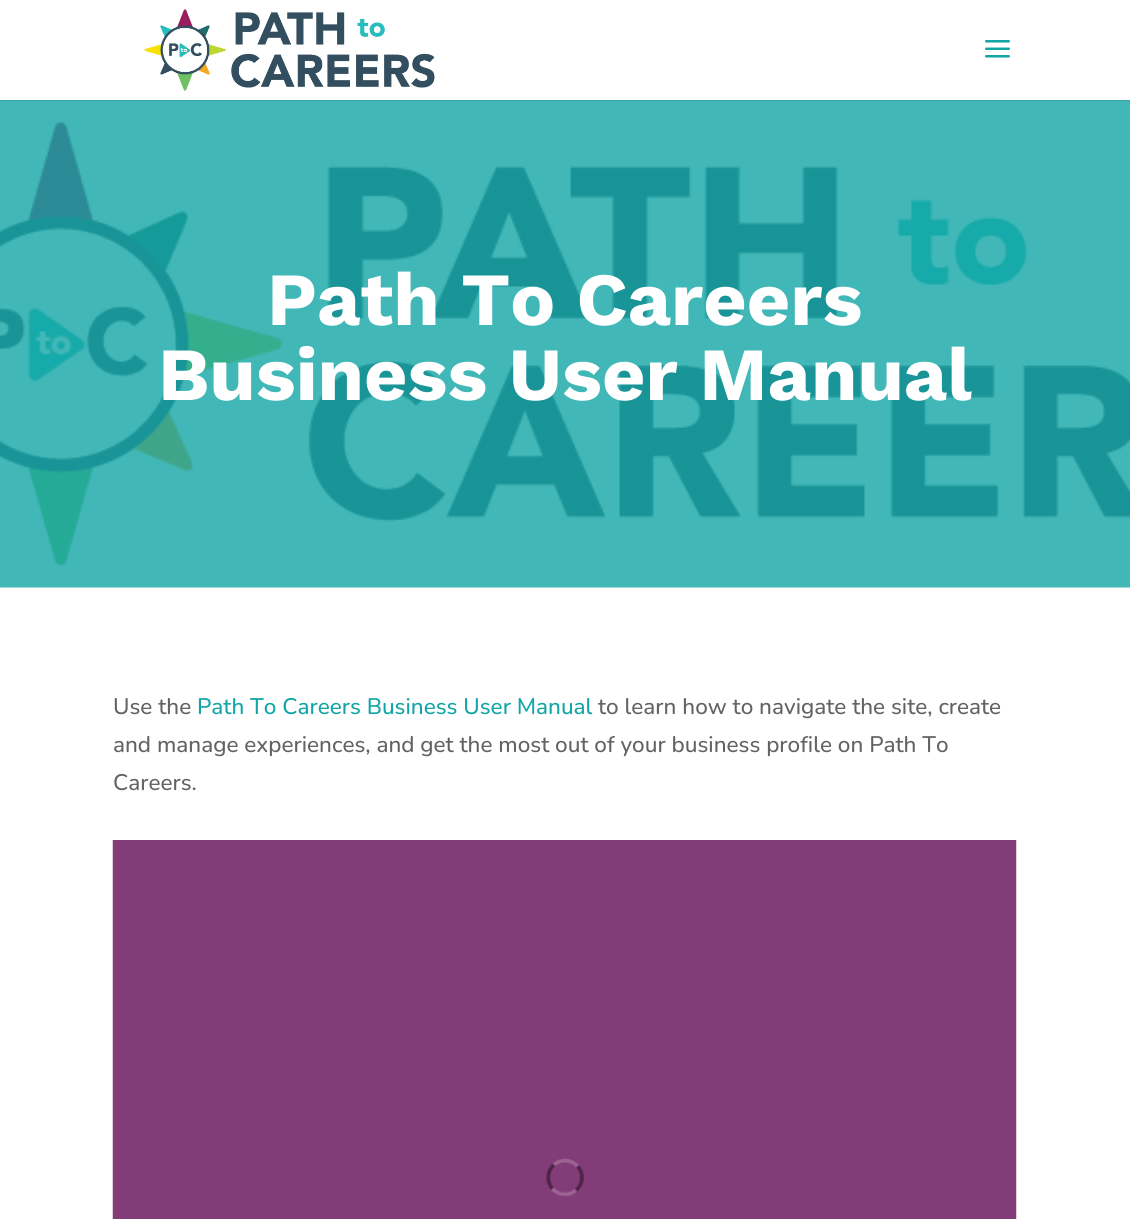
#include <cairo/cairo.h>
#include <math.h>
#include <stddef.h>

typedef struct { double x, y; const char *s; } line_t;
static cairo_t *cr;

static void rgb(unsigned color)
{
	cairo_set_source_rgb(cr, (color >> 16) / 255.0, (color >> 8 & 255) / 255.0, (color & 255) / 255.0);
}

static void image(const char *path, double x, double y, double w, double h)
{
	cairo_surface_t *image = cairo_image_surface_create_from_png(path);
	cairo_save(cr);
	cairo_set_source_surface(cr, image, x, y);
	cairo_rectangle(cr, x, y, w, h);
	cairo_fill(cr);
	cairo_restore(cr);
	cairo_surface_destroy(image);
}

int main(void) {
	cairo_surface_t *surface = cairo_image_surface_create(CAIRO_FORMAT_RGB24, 1130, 1219);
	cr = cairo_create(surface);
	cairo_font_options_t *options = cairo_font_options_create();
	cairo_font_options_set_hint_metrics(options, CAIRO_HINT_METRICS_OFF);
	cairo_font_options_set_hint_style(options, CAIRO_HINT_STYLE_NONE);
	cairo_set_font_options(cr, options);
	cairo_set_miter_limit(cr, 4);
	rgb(0xffffff);
	cairo_paint(cr);
	rgb(0x3ba5a5);
	cairo_rectangle(cr, 0, 100, 1130, 1);
	cairo_fill(cr);
	image("img/1.png", 144, 9, 291, 82);
	image("img/2.png", 985, 40, 25, 18);
	image("img/3.png", 0, 101, 1130, 487);
	image("img/4.png", 112, 840, 905, 379);
	cairo_select_font_face(cr, "Work Sans", CAIRO_FONT_SLANT_NORMAL, CAIRO_FONT_WEIGHT_BOLD);
	cairo_set_font_size(cr, 75);
	rgb(0xffffff);
	cairo_move_to(cr, 267, 325);
	cairo_show_text(cr, "Path To Careers");
	cairo_move_to(cr, 158, 400);
	cairo_show_text(cr, "Business User Manual");
	cairo_select_font_face(cr, "Nunito Medium", CAIRO_FONT_SLANT_NORMAL, CAIRO_FONT_WEIGHT_NORMAL);
	cairo_set_font_size(cr, 22.5);
	rgb(0x626363);
	cairo_move_to(cr, 113, 714);
	cairo_show_text(cr, "Use the");
	rgb(0x12a5a5);
	cairo_move_to(cr, 197, 714);
	cairo_show_text(cr, "Path To Careers Business User Manual");
	rgb(0x626363);
	{
		static const line_t items[] = {
			{598, 714, "to learn how to navigate the site, create"},
			{113, 752, "and manage experiences, and get the most out of your business profile on Path To"},
			{113, 790, "Careers."},
		};
		for (size_t i = 0; i < sizeof items / sizeof *items; i++) {
			cairo_move_to(cr, items[i].x, items[i].y);
			cairo_show_text(cr, items[i].s);
		}
	}
	cairo_surface_write_to_png(surface, "page.png");
	cairo_font_options_destroy(options);
	cairo_destroy(cr);
	cairo_surface_destroy(surface);
	return 0;
}
